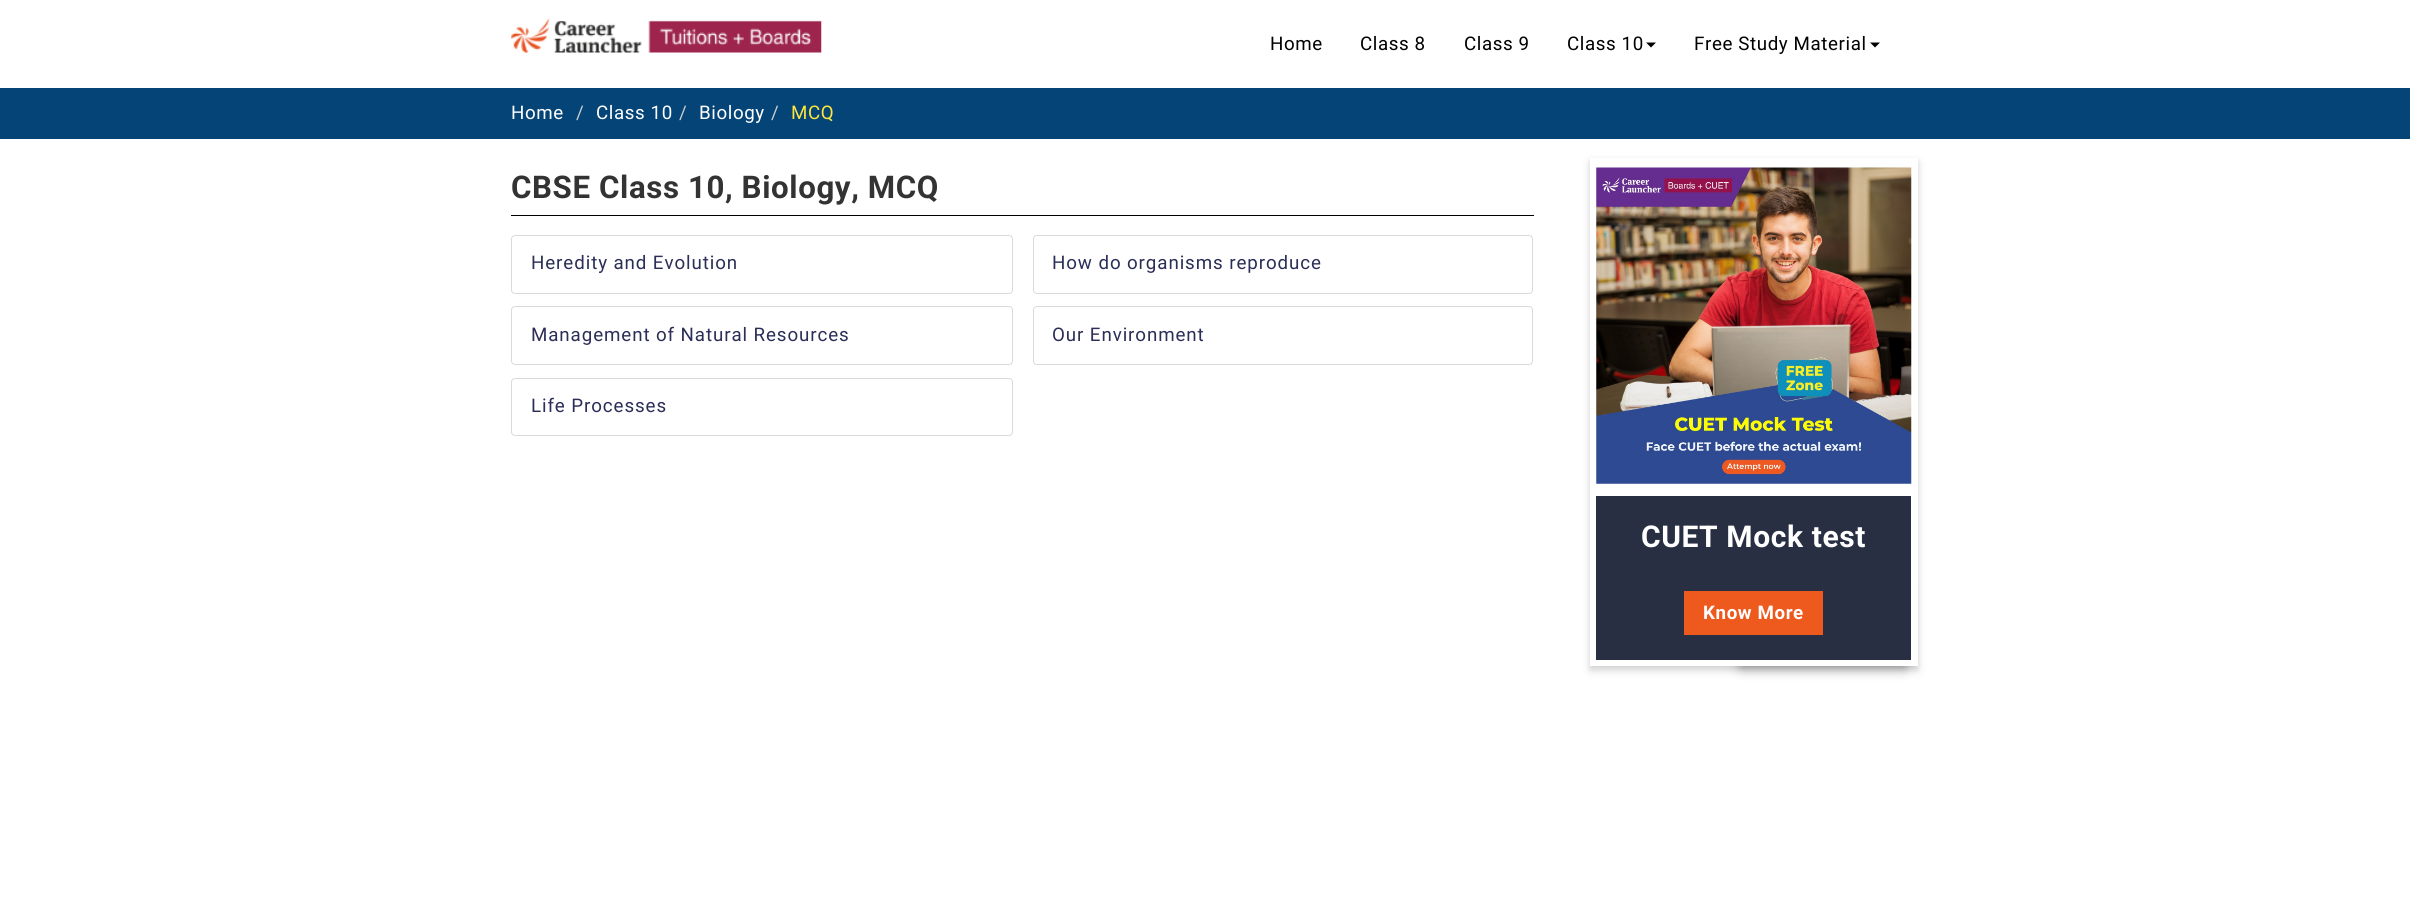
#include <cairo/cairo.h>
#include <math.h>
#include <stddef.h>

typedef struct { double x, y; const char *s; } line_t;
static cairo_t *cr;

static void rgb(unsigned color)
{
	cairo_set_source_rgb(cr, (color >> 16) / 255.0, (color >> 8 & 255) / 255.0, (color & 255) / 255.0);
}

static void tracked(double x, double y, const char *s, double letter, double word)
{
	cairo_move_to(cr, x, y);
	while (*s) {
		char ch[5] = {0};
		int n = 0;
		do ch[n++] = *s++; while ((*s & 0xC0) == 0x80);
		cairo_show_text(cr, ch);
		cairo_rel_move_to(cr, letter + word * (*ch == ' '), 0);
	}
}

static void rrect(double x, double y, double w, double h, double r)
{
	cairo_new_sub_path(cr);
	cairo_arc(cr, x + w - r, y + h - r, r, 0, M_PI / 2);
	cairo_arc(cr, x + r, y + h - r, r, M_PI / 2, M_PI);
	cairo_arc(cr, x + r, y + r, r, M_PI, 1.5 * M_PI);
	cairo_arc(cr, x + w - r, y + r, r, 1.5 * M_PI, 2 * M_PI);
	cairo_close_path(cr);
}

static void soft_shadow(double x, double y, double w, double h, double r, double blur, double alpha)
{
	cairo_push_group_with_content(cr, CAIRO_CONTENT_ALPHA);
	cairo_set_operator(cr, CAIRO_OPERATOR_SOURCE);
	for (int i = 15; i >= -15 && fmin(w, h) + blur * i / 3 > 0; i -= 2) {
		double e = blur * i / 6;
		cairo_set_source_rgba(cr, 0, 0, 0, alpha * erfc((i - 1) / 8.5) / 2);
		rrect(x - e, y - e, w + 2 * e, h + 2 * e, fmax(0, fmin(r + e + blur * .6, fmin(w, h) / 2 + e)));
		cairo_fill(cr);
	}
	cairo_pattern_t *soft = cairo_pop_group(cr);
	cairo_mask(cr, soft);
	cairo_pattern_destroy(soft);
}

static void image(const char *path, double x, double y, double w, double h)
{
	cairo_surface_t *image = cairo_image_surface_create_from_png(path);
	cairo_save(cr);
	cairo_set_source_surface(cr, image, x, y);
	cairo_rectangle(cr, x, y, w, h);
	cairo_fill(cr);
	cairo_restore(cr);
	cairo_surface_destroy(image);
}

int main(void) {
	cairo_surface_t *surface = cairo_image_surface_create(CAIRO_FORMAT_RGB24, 2410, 910);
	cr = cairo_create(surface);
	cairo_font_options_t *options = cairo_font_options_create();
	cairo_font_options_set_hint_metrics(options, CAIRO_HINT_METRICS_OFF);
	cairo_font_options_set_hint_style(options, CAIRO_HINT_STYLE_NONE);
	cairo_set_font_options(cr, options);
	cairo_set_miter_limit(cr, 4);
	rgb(0xffffff);
	cairo_paint(cr);
	image("img/1.png", 511, 18, 311, 35);
	rgb(0x000000);
	cairo_new_path(cr);
	cairo_move_to(cr, 1646, 42.5);
	cairo_line_to(cr, 1656, 42.5);
	cairo_line_to(cr, 1651, 47.5);
	cairo_close_path(cr);
	cairo_fill(cr);
	cairo_new_path(cr);
	cairo_move_to(cr, 1870, 42.5);
	cairo_line_to(cr, 1880, 42.5);
	cairo_line_to(cr, 1875, 47.5);
	cairo_close_path(cr);
	cairo_fill(cr);
	rgb(0x054477);
	cairo_rectangle(cr, 0, 88, 2410, 51);
	cairo_fill(cr);
	rgb(0x000000);
	cairo_rectangle(cr, 511, 215, 1023, 1);
	cairo_fill(cr);
	rrect(511.5, 235.5, 501, 58, 3.5);
	rgb(0xdadada);
	cairo_set_line_width(cr, 1);
	cairo_stroke(cr);
	rrect(1033.5, 235.5, 499, 58, 3.5);
	cairo_stroke(cr);
	rrect(511.5, 306.5, 501, 58, 3.5);
	cairo_stroke(cr);
	rrect(1033.5, 306.5, 499, 58, 3.5);
	cairo_stroke(cr);
	rrect(511.5, 378.5, 501, 57, 3.5);
	cairo_stroke(cr);
	rgb(0x000000);
	soft_shadow(1590, 160, 328, 509, 0, 2.5, 0.08);
	soft_shadow(1590, 163, 328, 508, 0, 5, 0.12);
	rgb(0x777777);
	soft_shadow(1741, 584, 164, 82, 0, 6.5, 1);
	rgb(0xffffff);
	cairo_rectangle(cr, 1590, 158, 328, 508);
	cairo_fill(cr);
	image("img/2.png", 1596, 167, 316, 317);
	rgb(0x292f43);
	cairo_rectangle(cr, 1596, 496, 315, 164);
	cairo_fill(cr);
	rgb(0xee591d);
	cairo_rectangle(cr, 1684, 591, 139, 44);
	cairo_fill(cr);
	cairo_select_font_face(cr, "Roboto", CAIRO_FONT_SLANT_NORMAL, CAIRO_FONT_WEIGHT_NORMAL);
	cairo_set_font_size(cr, 18.75);
	rgb(0x000000);
	{
		static const line_t items[] = {
			{1270, 50, "Home"},
			{1360, 50, "Class 8"},
			{1464, 50, "Class 9"},
			{1567, 50, "Class 10"},
			{1694, 50, "Free Study Material"},
		};
		for (size_t i = 0; i < sizeof items / sizeof *items; i++) {
			tracked(items[i].x, items[i].y, items[i].s, 0.6, 0);
		}
	}
	rgb(0xffffff);
	tracked(511, 119, "Home", 0.6, 0);
	rgb(0xcccccc);
	tracked(576, 119, "/", 0.6, 0);
	rgb(0xffffff);
	tracked(596, 119, "Class 10", 0.6, 0);
	rgb(0xcccccc);
	tracked(679, 119, "/", 0.6, 0);
	rgb(0xffffff);
	tracked(699, 119, "Biology", 0.6, 0);
	rgb(0xcccccc);
	tracked(771, 119, "/", 0.6, 0);
	rgb(0xffe63b);
	tracked(791, 119, "MCQ", 0.6, 0);
	cairo_select_font_face(cr, "Roboto", CAIRO_FONT_SLANT_NORMAL, CAIRO_FONT_WEIGHT_BOLD);
	cairo_set_font_size(cr, 31.25);
	rgb(0x333333);
	tracked(511, 198, "CBSE Class 10, Biology, MCQ", 0.6, 0);
	cairo_select_font_face(cr, "Roboto", CAIRO_FONT_SLANT_NORMAL, CAIRO_FONT_WEIGHT_NORMAL);
	cairo_set_font_size(cr, 18.75);
	rgb(0x2b2f58);
	{
		static const line_t items[] = {
			{531, 269, "Heredity and Evolution"},
			{1052, 269, "How do organisms reproduce"},
			{531, 341, "Management of Natural Resources"},
			{1052, 341, "Our Environment"},
			{531, 412, "Life Processes"},
		};
		for (size_t i = 0; i < sizeof items / sizeof *items; i++) {
			tracked(items[i].x, items[i].y, items[i].s, 0.9, 0);
		}
	}
	cairo_select_font_face(cr, "Roboto", CAIRO_FONT_SLANT_NORMAL, CAIRO_FONT_WEIGHT_BOLD);
	cairo_set_font_size(cr, 30);
	rgb(0xffffff);
	tracked(1641, 547, "CUET Mock test", 0.6, 0);
	cairo_set_font_size(cr, 18.75);
	tracked(1703, 619, "Know More", 0.6, 0);
	cairo_surface_write_to_png(surface, "page.png");
	cairo_font_options_destroy(options);
	cairo_destroy(cr);
	cairo_surface_destroy(surface);
	return 0;
}
